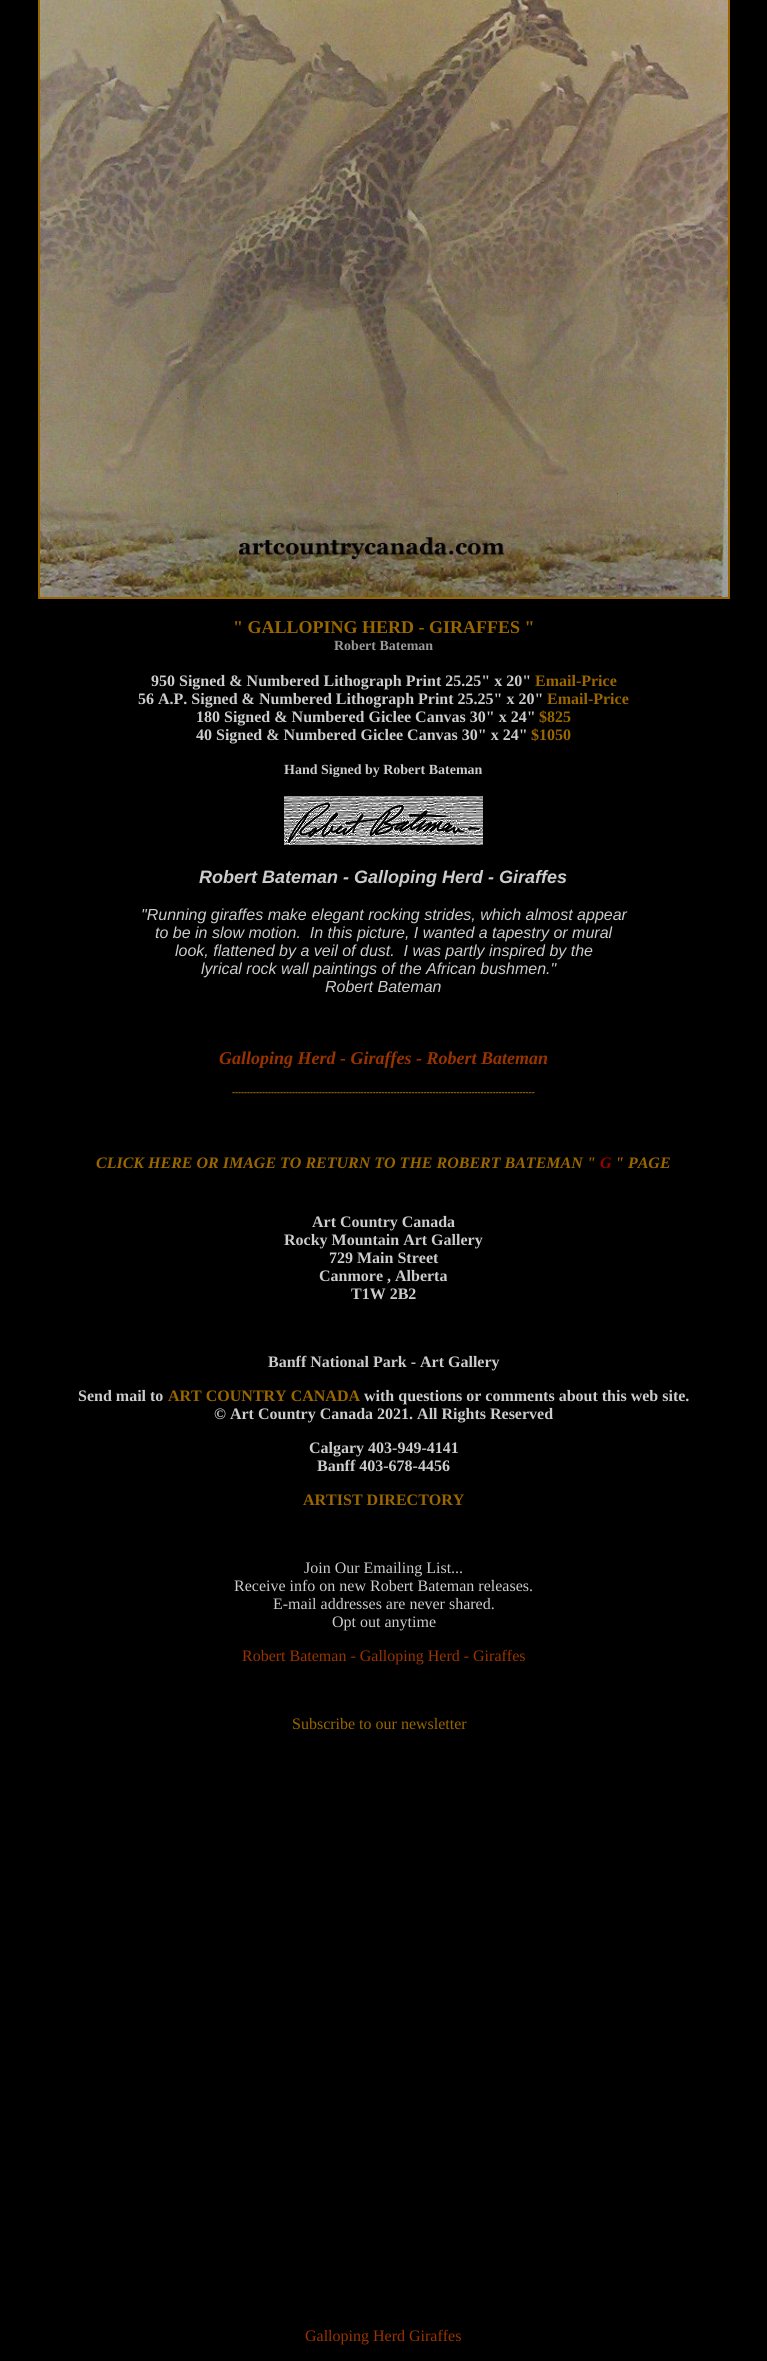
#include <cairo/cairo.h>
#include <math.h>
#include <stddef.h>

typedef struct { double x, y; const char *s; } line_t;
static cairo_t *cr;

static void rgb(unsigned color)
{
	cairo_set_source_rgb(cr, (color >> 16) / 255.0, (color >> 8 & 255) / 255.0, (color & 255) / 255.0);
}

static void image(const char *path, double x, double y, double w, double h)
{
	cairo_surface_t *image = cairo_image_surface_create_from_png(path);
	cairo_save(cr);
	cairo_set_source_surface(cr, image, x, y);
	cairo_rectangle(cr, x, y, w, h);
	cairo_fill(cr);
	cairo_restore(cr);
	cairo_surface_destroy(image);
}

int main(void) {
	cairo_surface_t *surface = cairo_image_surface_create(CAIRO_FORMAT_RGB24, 767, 2361);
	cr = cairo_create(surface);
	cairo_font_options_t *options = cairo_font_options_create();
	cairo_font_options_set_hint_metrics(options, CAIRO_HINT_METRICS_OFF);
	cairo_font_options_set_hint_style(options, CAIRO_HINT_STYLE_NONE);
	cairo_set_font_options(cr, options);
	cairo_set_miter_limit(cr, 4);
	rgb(0x000000);
	cairo_paint(cr);
	cairo_rectangle(cr, 39, -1, 690, 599);
	rgb(0x996600);
	cairo_stroke(cr);
	image("img/1.png", 40, 0, 688, 597);
	image("img/2.png", 284, 796, 199, 49);
	cairo_select_font_face(cr, "Liberation Serif", CAIRO_FONT_SLANT_NORMAL, CAIRO_FONT_WEIGHT_BOLD);
	cairo_set_font_size(cr, 18);
	cairo_move_to(cr, 233, 633);
	cairo_show_text(cr, "\" GALLOPING HERD - GIRAFFES \"");
	cairo_set_font_size(cr, 14);
	rgb(0x999999);
	cairo_move_to(cr, 334, 650);
	cairo_show_text(cr, "Robert Bateman");
	cairo_set_font_size(cr, 16);
	rgb(0xcccccc);
	cairo_move_to(cr, 151, 686);
	cairo_show_text(cr, "950 Signed & Numbered Lithograph Print 25.25\" x 20\"");
	rgb(0x996600);
	cairo_move_to(cr, 535, 686);
	cairo_show_text(cr, "Email-Price");
	rgb(0xcccccc);
	cairo_move_to(cr, 138, 704);
	cairo_show_text(cr, "56 A.P. Signed & Numbered Lithograph Print 25.25\" x 20\"");
	rgb(0x996600);
	cairo_move_to(cr, 547, 704);
	cairo_show_text(cr, "Email-Price");
	rgb(0xcccccc);
	cairo_move_to(cr, 196, 722);
	cairo_show_text(cr, "180 Signed & Numbered Giclee Canvas 30\" x 24\"");
	rgb(0x996600);
	cairo_move_to(cr, 539, 722);
	cairo_show_text(cr, "$825");
	rgb(0xcccccc);
	cairo_move_to(cr, 196, 740);
	cairo_show_text(cr, "40 Signed & Numbered Giclee Canvas 30\" x 24\"");
	rgb(0x996600);
	cairo_move_to(cr, 531, 740);
	cairo_show_text(cr, "$1050");
	cairo_set_font_size(cr, 14);
	rgb(0xcccccc);
	cairo_move_to(cr, 284, 774);
	cairo_show_text(cr, "Hand Signed by Robert Bateman");
	cairo_select_font_face(cr, "Liberation Sans", CAIRO_FONT_SLANT_ITALIC, CAIRO_FONT_WEIGHT_BOLD);
	cairo_set_font_size(cr, 18);
	cairo_move_to(cr, 199, 883);
	cairo_show_text(cr, "Robert Bateman - Galloping Herd - Giraffes");
	cairo_select_font_face(cr, "Liberation Sans", CAIRO_FONT_SLANT_ITALIC, CAIRO_FONT_WEIGHT_NORMAL);
	cairo_set_font_size(cr, 16);
	{
		static const line_t items[] = {
			{141, 920, "\"Running giraffes make elegant rocking strides, which almost appear"},
			{155, 938, "to be in slow motion.  In this picture, I wanted a tapestry or mural"},
			{175, 956, "look, flattened by a veil of dust.  I was partly inspired by the"},
			{201, 974, "lyrical rock wall paintings of the African bushmen.\""},
			{325, 992, "Robert Bateman"},
		};
		for (size_t i = 0; i < sizeof items / sizeof *items; i++) {
			cairo_move_to(cr, items[i].x, items[i].y);
			cairo_show_text(cr, items[i].s);
		}
	}
	cairo_select_font_face(cr, "Liberation Serif", CAIRO_FONT_SLANT_ITALIC, CAIRO_FONT_WEIGHT_BOLD);
	cairo_set_font_size(cr, 18);
	rgb(0x993300);
	cairo_move_to(cr, 219, 1064);
	cairo_show_text(cr, "Galloping Herd - Giraffes - Robert Bateman");
	cairo_select_font_face(cr, "Liberation Sans", CAIRO_FONT_SLANT_ITALIC, CAIRO_FONT_WEIGHT_BOLD);
	cairo_set_font_size(cr, 9);
	rgb(0x996600);
	cairo_move_to(cr, 232, 1095);
	cairo_show_text(cr, "-----------------------------------------------------------------------------------------------------");
	cairo_select_font_face(cr, "Liberation Serif", CAIRO_FONT_SLANT_ITALIC, CAIRO_FONT_WEIGHT_BOLD);
	cairo_set_font_size(cr, 16);
	cairo_move_to(cr, 96, 1168);
	cairo_show_text(cr, "CLICK HERE OR IMAGE TO RETURN TO THE ROBERT BATEMAN \"");
	rgb(0x990000);
	cairo_move_to(cr, 600, 1168);
	cairo_show_text(cr, "G");
	rgb(0x996600);
	cairo_move_to(cr, 615, 1168);
	cairo_show_text(cr, "\" PAGE");
	cairo_select_font_face(cr, "Liberation Serif", CAIRO_FONT_SLANT_NORMAL, CAIRO_FONT_WEIGHT_BOLD);
	rgb(0xcccccc);
	{
		static const line_t items[] = {
			{312, 1227, "Art Country Canada"},
			{284, 1245, "Rocky Mountain Art Gallery"},
			{329, 1263, "729 Main Street"},
			{319, 1281, "Canmore , Alberta"},
			{351, 1299, "T1W 2B2"},
			{268, 1367, "Banff National Park - Art Gallery"},
			{78, 1401, "Send mail to"},
		};
		for (size_t i = 0; i < sizeof items / sizeof *items; i++) {
			cairo_move_to(cr, items[i].x, items[i].y);
			cairo_show_text(cr, items[i].s);
		}
	}
	rgb(0x996600);
	cairo_move_to(cr, 168, 1401);
	cairo_show_text(cr, "ART COUNTRY CANADA");
	rgb(0xcccccc);
	{
		static const line_t items[] = {
			{364, 1401, "with questions or comments about this web site."},
			{214, 1419, "© Art Country Canada 2021. All Rights Reserved"},
			{309, 1453, "Calgary 403-949-4141"},
			{317, 1471, "Banff 403-678-4456"},
		};
		for (size_t i = 0; i < sizeof items / sizeof *items; i++) {
			cairo_move_to(cr, items[i].x, items[i].y);
			cairo_show_text(cr, items[i].s);
		}
	}
	rgb(0x996600);
	cairo_move_to(cr, 303, 1505);
	cairo_show_text(cr, "ARTIST DIRECTORY");
	cairo_select_font_face(cr, "Liberation Serif", CAIRO_FONT_SLANT_NORMAL, CAIRO_FONT_WEIGHT_NORMAL);
	rgb(0xcccccc);
	{
		static const line_t items[] = {
			{304, 1573, "Join Our Emailing List..."},
			{234, 1591, "Receive info on new Robert Bateman releases."},
			{273, 1609, "E-mail addresses are never shared."},
			{332, 1627, "Opt out anytime"},
		};
		for (size_t i = 0; i < sizeof items / sizeof *items; i++) {
			cairo_move_to(cr, items[i].x, items[i].y);
			cairo_show_text(cr, items[i].s);
		}
	}
	rgb(0x993300);
	cairo_move_to(cr, 242, 1661);
	cairo_show_text(cr, "Robert Bateman - Galloping Herd - Giraffes");
	rgb(0x996600);
	cairo_move_to(cr, 292, 1729);
	cairo_show_text(cr, "Subscribe to our newsletter");
	rgb(0x993300);
	cairo_move_to(cr, 305, 2341);
	cairo_show_text(cr, "Galloping Herd Giraffes");
	cairo_surface_write_to_png(surface, "page.png");
	cairo_font_options_destroy(options);
	cairo_destroy(cr);
	cairo_surface_destroy(surface);
	return 0;
}
